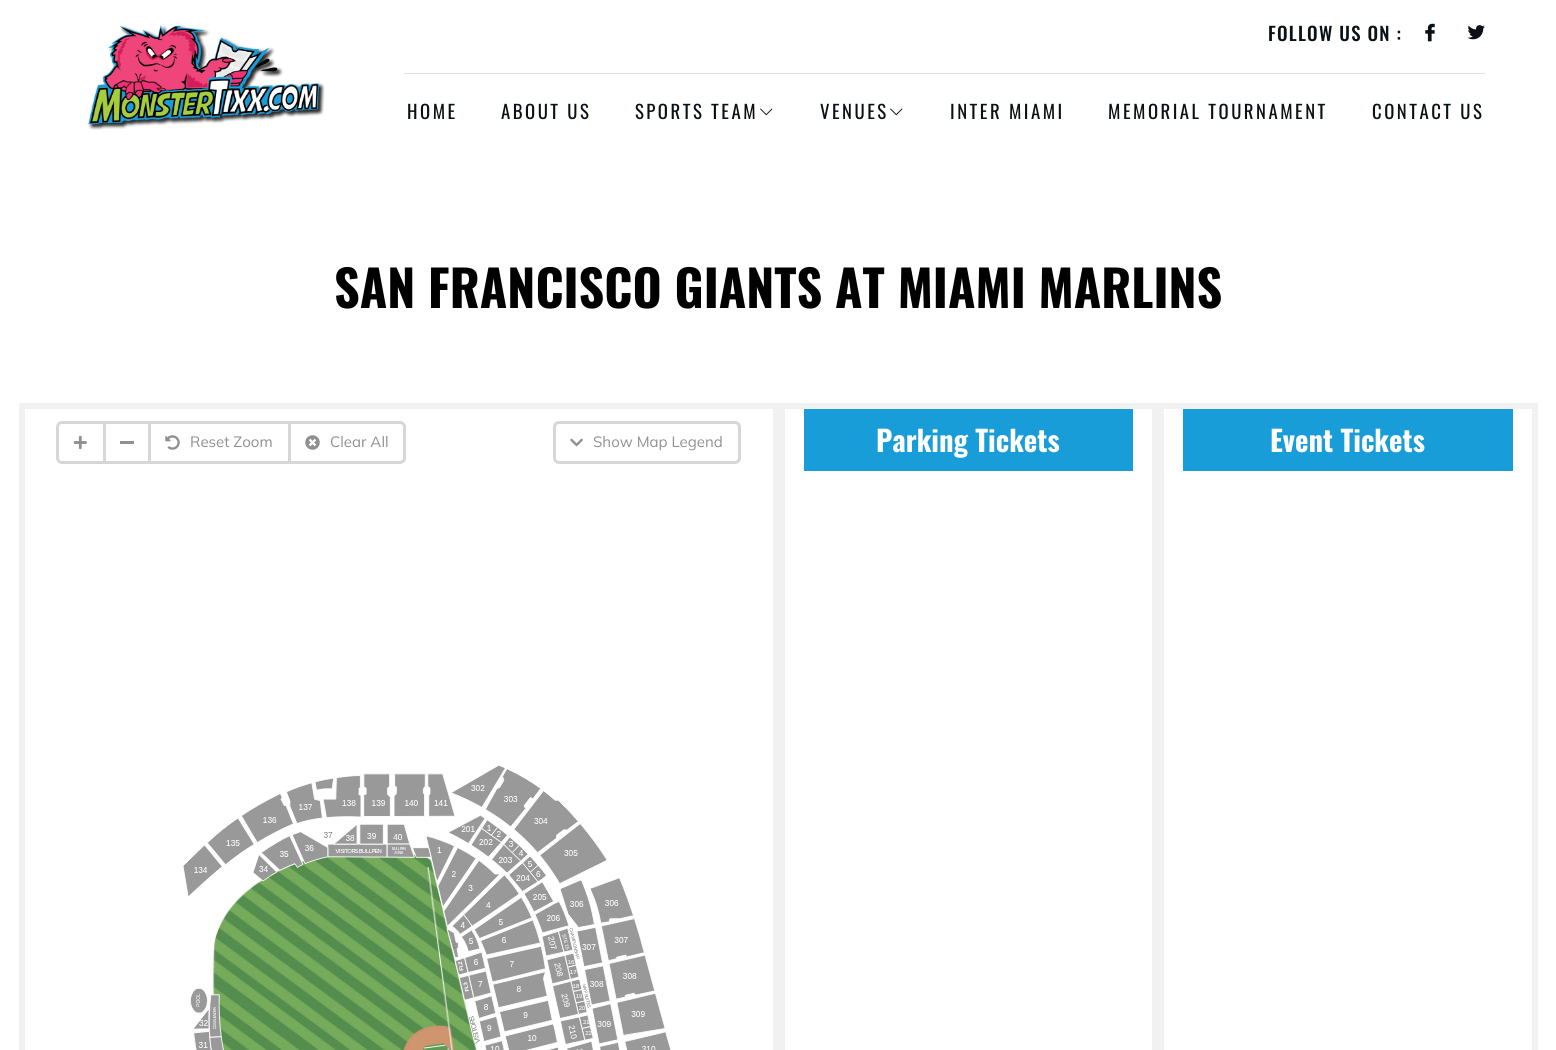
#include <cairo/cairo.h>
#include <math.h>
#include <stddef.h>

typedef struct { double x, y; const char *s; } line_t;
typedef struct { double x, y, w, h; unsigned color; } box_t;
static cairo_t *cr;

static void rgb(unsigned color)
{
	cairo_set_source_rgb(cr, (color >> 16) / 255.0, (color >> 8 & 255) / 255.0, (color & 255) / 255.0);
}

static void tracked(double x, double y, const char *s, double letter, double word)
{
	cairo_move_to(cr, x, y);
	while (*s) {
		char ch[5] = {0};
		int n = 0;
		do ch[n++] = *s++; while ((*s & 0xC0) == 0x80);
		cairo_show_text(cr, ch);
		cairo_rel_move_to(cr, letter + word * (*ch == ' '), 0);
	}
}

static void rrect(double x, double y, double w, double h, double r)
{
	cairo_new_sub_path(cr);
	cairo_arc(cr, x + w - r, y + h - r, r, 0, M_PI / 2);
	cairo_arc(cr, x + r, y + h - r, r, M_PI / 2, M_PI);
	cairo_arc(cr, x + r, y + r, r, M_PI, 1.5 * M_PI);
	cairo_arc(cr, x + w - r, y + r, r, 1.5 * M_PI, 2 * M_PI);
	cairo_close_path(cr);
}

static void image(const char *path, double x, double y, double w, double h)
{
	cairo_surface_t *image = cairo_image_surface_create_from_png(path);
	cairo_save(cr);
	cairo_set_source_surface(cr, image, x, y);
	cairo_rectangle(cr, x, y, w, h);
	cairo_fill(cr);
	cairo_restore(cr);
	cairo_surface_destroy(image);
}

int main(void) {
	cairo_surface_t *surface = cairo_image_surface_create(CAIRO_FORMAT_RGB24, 1556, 1050);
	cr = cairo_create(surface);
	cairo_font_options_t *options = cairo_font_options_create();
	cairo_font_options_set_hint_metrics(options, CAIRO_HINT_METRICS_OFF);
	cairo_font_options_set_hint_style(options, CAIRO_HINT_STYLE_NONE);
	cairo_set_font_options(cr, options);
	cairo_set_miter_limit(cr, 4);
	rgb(0xffffff);
	cairo_paint(cr);
	image("img/1.png", 88, 25, 237, 105);
	image("img/2.png", 1425, 23, 10, 19);
	image("img/3.png", 1467, 25, 18, 15);
	rgb(0xe0e0e0);
	cairo_rectangle(cr, 404, 73, 1081, 1);
	cairo_fill(cr);
	image("img/4.png", 760, 108, 13, 8);
	image("img/4.png", 890, 108, 13, 8);
	cairo_rectangle(cr, 22, 406, 754, 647);
	rgb(0xf1f1f1);
	cairo_set_line_width(cr, 6);
	cairo_stroke(cr);
	rrect(57.5, 422.5, 347, 40, 4.5);
	rgb(0xd7d7d7);
	cairo_set_line_width(cr, 3);
	cairo_stroke(cr);
	cairo_rectangle(cr, 103, 424, 3, 37);
	cairo_fill(cr);
	image("img/5.png", 73, 435, 14, 15);
	{
		static const box_t items[] = {
			{148, 424, 3, 37, 0xd7d7d7},
			{120, 441, 14, 3, 0x909090},
			{288, 424, 3, 37, 0xd7d7d7},
		};
		for (size_t i = 0; i < sizeof items / sizeof *items; i++) {
			rgb(items[i].color);
			cairo_rectangle(cr, items[i].x, items[i].y, items[i].w, items[i].h);
			cairo_fill(cr);
		}
	}
	image("img/6.png", 165, 435, 15, 15);
	image("img/7.png", 305, 435, 15, 15);
	rrect(554.5, 422.5, 185, 40, 4.5);
	cairo_stroke(cr);
	image("img/8.png", 570, 438, 13, 9);
	image("img/9.png", 183, 765, 488, 285);
	cairo_rectangle(cr, 782, 406, 373, 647);
	rgb(0xf1f1f1);
	cairo_set_line_width(cr, 6);
	cairo_stroke(cr);
	rgb(0x189dd8);
	cairo_rectangle(cr, 804, 409, 329, 62);
	cairo_fill(cr);
	cairo_rectangle(cr, 1161, 406, 374, 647);
	rgb(0xf1f1f1);
	cairo_stroke(cr);
	rgb(0x189dd8);
	cairo_rectangle(cr, 1183, 409, 330, 62);
	cairo_fill(cr);
	cairo_select_font_face(cr, "Oswald Medium", CAIRO_FONT_SLANT_NORMAL, CAIRO_FONT_WEIGHT_NORMAL);
	cairo_set_font_size(cr, 18.75);
	rgb(0x0a1015);
	tracked(1268, 41, "FOLLOW US ON :", 1.25, 0);
	cairo_select_font_face(cr, "Oswald", CAIRO_FONT_SLANT_NORMAL, CAIRO_FONT_WEIGHT_NORMAL);
	{
		static const line_t items[] = {
			{407, 119, "HOME"},
			{501, 119, "ABOUT US"},
			{635, 119, "SPORTS TEAM"},
			{820, 119, "VENUES"},
			{950, 119, "INTER MIAMI"},
			{1108, 119, "MEMORIAL TOURNAMENT"},
			{1372, 119, "CONTACT US"},
		};
		for (size_t i = 0; i < sizeof items / sizeof *items; i++) {
			tracked(items[i].x, items[i].y, items[i].s, 2.5, 0);
		}
	}
	cairo_select_font_face(cr, "Oswald", CAIRO_FONT_SLANT_NORMAL, CAIRO_FONT_WEIGHT_BOLD);
	cairo_set_font_size(cr, 50);
	rgb(0x000000);
	cairo_move_to(cr, 334, 308);
	cairo_show_text(cr, "SAN FRANCISCO GIANTS AT MIAMI MARLINS");
	cairo_select_font_face(cr, "Mulish", CAIRO_FONT_SLANT_NORMAL, CAIRO_FONT_WEIGHT_NORMAL);
	cairo_set_font_size(cr, 15);
	rgb(0x909090);
	{
		static const line_t items[] = {
			{190, 447, "Reset Zoom"},
			{330, 447, "Clear All"},
			{593, 447, "Show Map Legend"},
		};
		for (size_t i = 0; i < sizeof items / sizeof *items; i++) {
			cairo_move_to(cr, items[i].x, items[i].y);
			cairo_show_text(cr, items[i].s);
		}
	}
	cairo_select_font_face(cr, "Oswald", CAIRO_FONT_SLANT_NORMAL, CAIRO_FONT_WEIGHT_BOLD);
	cairo_set_font_size(cr, 28.75);
	rgb(0xffffff);
	cairo_move_to(cr, 876, 452);
	cairo_show_text(cr, "Parking Tickets");
	cairo_move_to(cr, 1270, 452);
	cairo_show_text(cr, "Event Tickets");
	cairo_surface_write_to_png(surface, "page.png");
	cairo_font_options_destroy(options);
	cairo_destroy(cr);
	cairo_surface_destroy(surface);
	return 0;
}
